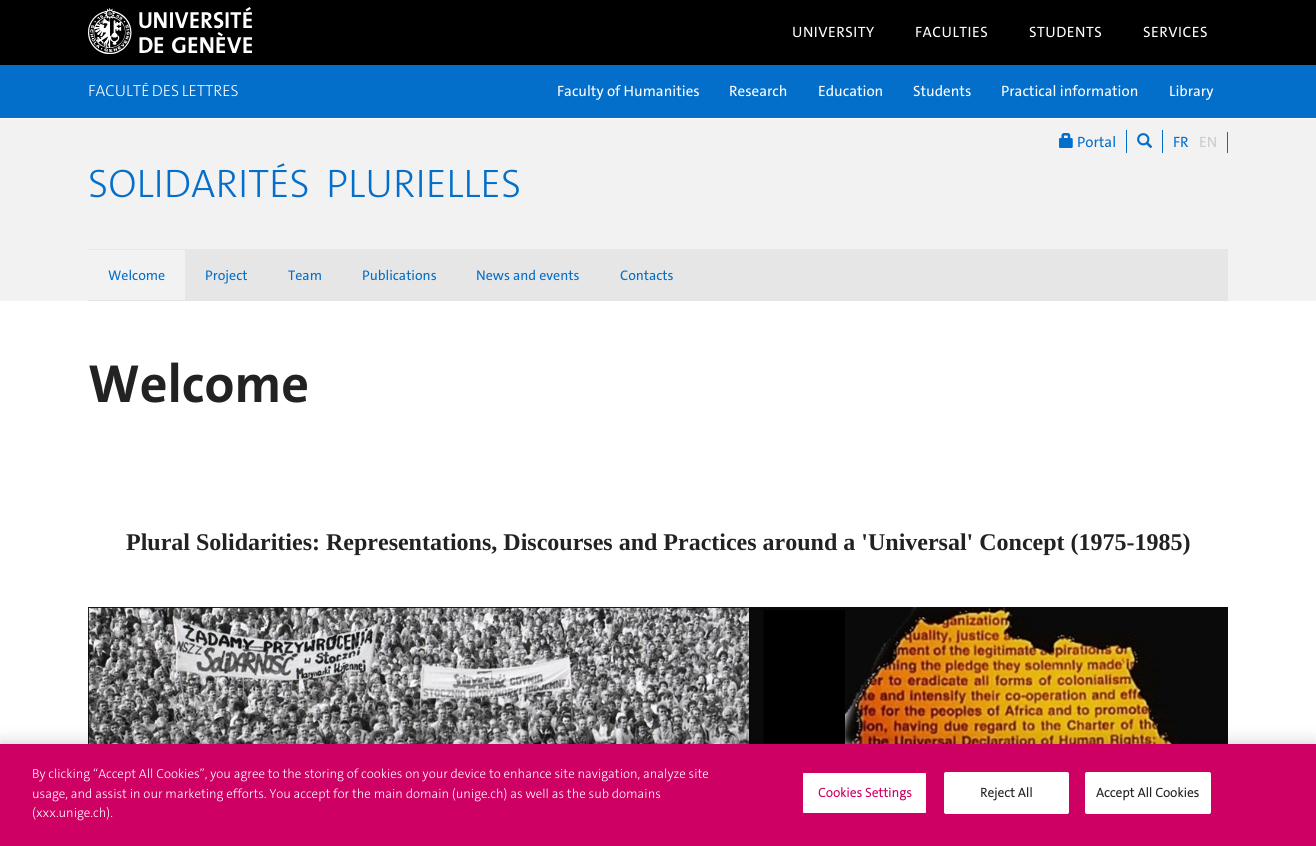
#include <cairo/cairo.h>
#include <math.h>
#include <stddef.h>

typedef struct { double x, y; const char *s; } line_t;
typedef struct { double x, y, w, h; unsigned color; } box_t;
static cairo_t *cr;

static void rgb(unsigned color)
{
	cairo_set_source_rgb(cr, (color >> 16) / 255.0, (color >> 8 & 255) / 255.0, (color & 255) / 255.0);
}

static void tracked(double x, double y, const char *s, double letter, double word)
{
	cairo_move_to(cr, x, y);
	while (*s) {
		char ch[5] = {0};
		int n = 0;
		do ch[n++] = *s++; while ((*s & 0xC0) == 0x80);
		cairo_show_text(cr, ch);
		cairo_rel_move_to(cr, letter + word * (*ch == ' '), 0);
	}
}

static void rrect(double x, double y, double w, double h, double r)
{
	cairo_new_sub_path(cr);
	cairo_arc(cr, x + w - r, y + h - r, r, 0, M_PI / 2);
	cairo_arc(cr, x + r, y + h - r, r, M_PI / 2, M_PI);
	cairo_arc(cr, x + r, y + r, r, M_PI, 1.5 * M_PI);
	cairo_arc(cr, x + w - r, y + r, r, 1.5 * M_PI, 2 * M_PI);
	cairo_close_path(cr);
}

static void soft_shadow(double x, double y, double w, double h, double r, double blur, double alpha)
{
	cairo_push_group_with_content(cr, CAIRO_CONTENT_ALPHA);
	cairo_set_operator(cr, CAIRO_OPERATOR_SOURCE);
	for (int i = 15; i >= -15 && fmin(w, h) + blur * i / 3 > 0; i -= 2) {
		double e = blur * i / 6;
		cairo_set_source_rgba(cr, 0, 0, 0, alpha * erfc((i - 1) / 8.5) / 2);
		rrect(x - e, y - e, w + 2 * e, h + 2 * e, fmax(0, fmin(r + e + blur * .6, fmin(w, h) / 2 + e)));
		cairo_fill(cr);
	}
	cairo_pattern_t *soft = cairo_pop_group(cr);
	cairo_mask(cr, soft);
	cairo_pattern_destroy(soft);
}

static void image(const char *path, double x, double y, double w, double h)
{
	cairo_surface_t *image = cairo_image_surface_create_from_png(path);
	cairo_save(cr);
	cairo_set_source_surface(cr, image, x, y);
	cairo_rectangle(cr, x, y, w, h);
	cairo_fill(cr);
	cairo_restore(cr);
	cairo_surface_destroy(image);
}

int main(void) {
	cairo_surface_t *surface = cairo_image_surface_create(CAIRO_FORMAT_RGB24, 1316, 846);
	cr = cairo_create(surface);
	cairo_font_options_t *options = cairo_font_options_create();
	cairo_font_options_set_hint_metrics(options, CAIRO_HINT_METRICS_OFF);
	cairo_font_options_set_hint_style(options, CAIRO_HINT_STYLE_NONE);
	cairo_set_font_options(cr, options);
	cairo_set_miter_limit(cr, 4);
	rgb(0xffffff);
	cairo_paint(cr);
	rgb(0x000000);
	cairo_rectangle(cr, 0, 0, 1316, 65);
	cairo_fill(cr);
	image("img/1.png", 88, 7, 164, 47);
	{
		static const box_t items[] = {
			{0, 65, 1316, 53, 0x046fcb},
			{0, 119, 1316, 182, 0xf2f2f2},
			{1126, 130, 1, 23, 0x046fcb},
		};
		for (size_t i = 0; i < sizeof items / sizeof *items; i++) {
			rgb(items[i].color);
			cairo_rectangle(cr, items[i].x, items[i].y, items[i].w, items[i].h);
			cairo_fill(cr);
		}
	}
	image("img/2.png", 1059, 133, 14, 15);
	cairo_rectangle(cr, 1162, 130, 1, 23);
	cairo_fill(cr);
	image("img/3.png", 1137, 133, 16, 15);
	{
		static const box_t items[] = {
			{1227, 132, 1, 21, 0x046fcb},
			{88, 249, 1140, 52, 0xe6e6e6},
			{88, 250, 97, 50, 0xf2f2f2},
		};
		for (size_t i = 0; i < sizeof items / sizeof *items; i++) {
			rgb(items[i].color);
			cairo_rectangle(cr, items[i].x, items[i].y, items[i].w, items[i].h);
			cairo_fill(cr);
		}
	}
	image("img/4.png", 88, 607, 1140, 137);
	rgb(0x000000);
	soft_shadow(0, 744, 1316, 102, 0, 9, 0.2);
	rgb(0xcf0063);
	cairo_rectangle(cr, 0, 744, 1316, 102);
	cairo_fill(cr);
	rgb(0xffffff);
	rrect(802.5, 772.5, 124, 41, 1.5);
	cairo_fill_preserve(cr);
	rgb(0xcf0063);
	cairo_set_line_width(cr, 1);
	cairo_stroke(cr);
	rgb(0xffffff);
	rrect(944.5, 772.5, 124, 41, 1.5);
	cairo_fill_preserve(cr);
	cairo_stroke(cr);
	rrect(1085.5, 772.5, 125, 41, 1.5);
	cairo_fill_preserve(cr);
	cairo_stroke(cr);
	cairo_select_font_face(cr, "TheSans", CAIRO_FONT_SLANT_NORMAL, CAIRO_FONT_WEIGHT_NORMAL);
	cairo_set_font_size(cr, 15);
	{
		static const line_t items[] = {
			{792, 37, "UNIVERSITY"},
			{915, 37, "FACULTIES"},
			{1029, 37, "STUDENTS"},
			{1143, 37, "SERVICES"},
		};
		for (size_t i = 0; i < sizeof items / sizeof *items; i++) {
			tracked(items[i].x, items[i].y, items[i].s, 0.5, 0);
		}
	}
	cairo_save(cr);
	cairo_rectangle(cr, 88, 83, 153, 16);
	cairo_clip(cr);
	cairo_select_font_face(cr, "TheSans Light", CAIRO_FONT_SLANT_NORMAL, CAIRO_FONT_WEIGHT_NORMAL);
	cairo_set_font_size(cr, 16);
	tracked(88, 96, "FACULTÉ DES LETTRES", 0, -1);
	cairo_restore(cr);
	{
		static const line_t items[] = {
			{557, 96, "Faculty of Humanities"},
			{729, 96, "Research"},
			{818, 96, "Education"},
			{913, 96, "Students"},
			{1001, 96, "Practical information"},
			{1169, 96, "Library"},
		};
		for (size_t i = 0; i < sizeof items / sizeof *items; i++) {
			cairo_move_to(cr, items[i].x, items[i].y);
			cairo_show_text(cr, items[i].s);
		}
	}
	rgb(0x046fcb);
	cairo_move_to(cr, 1077, 147);
	cairo_show_text(cr, "Portal");
	cairo_move_to(cr, 1173, 147);
	cairo_show_text(cr, "FR");
	rgb(0xcccccc);
	cairo_move_to(cr, 1199, 147);
	cairo_show_text(cr, "EN");
	cairo_select_font_face(cr, "TheSans Light", CAIRO_FONT_SLANT_NORMAL, CAIRO_FONT_WEIGHT_NORMAL);
	cairo_set_font_size(cr, 40);
	rgb(0x046fcb);
	tracked(88, 197, "SOLIDARITÉS", 0, -2);
	tracked(326, 197, "PLURIELLES", 0, -2);
	cairo_select_font_face(cr, "TheSans", CAIRO_FONT_SLANT_NORMAL, CAIRO_FONT_WEIGHT_NORMAL);
	cairo_set_font_size(cr, 14);
	{
		static const line_t items[] = {
			{108, 280, "Welcome"},
			{205, 280, "Project"},
			{288, 280, "Team"},
			{362, 280, "Publications"},
			{476, 280, "News and events"},
			{620, 280, "Contacts"},
		};
		for (size_t i = 0; i < sizeof items / sizeof *items; i++) {
			cairo_move_to(cr, items[i].x, items[i].y);
			cairo_show_text(cr, items[i].s);
		}
	}
	cairo_select_font_face(cr, "TheSans", CAIRO_FONT_SLANT_NORMAL, CAIRO_FONT_WEIGHT_BOLD);
	cairo_set_font_size(cr, 54);
	rgb(0x222222);
	cairo_move_to(cr, 88, 402);
	cairo_show_text(cr, "Welcome");
	cairo_select_font_face(cr, "Liberation Serif", CAIRO_FONT_SLANT_NORMAL, CAIRO_FONT_WEIGHT_BOLD);
	cairo_set_font_size(cr, 24);
	cairo_move_to(cr, 126, 550);
	cairo_show_text(cr, "Plural Solidarities: Representations, Discourses and Practices around a 'Universal' Concept (1975-1985)");
	cairo_select_font_face(cr, "TheSans Light", CAIRO_FONT_SLANT_NORMAL, CAIRO_FONT_WEIGHT_NORMAL);
	cairo_set_font_size(cr, 13);
	rgb(0xffffff);
	{
		static const line_t items[] = {
			{32, 778, "By clicking “Accept All Cookies”, you agree to the storing of cookies on your device to enhance site navigation, analyze site"},
			{32, 798, "usage, and assist in our marketing efforts. You accept for the main domain (unige.ch) as well as the sub domains"},
			{32, 817, "(xxx.unige.ch)."},
		};
		for (size_t i = 0; i < sizeof items / sizeof *items; i++) {
			cairo_move_to(cr, items[i].x, items[i].y);
			cairo_show_text(cr, items[i].s);
		}
	}
	cairo_select_font_face(cr, "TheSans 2", CAIRO_FONT_SLANT_NORMAL, CAIRO_FONT_WEIGHT_BOLD);
	rgb(0xcf0063);
	tracked(818, 797, "Cookies Settings", 0.1, 0);
	rgb(0x222222);
	tracked(980, 797, "Reject All", 0.1, 0);
	tracked(1096, 797, "Accept All Cookies", 0.1, 0);
	cairo_surface_write_to_png(surface, "page.png");
	cairo_font_options_destroy(options);
	cairo_destroy(cr);
	cairo_surface_destroy(surface);
	return 0;
}
